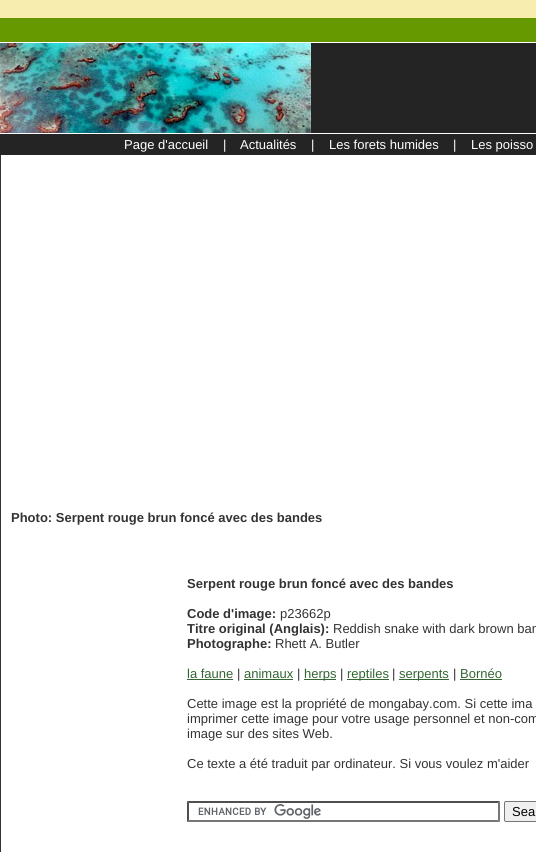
#include <cairo/cairo.h>
#include <math.h>
#include <stddef.h>

typedef struct { double x, y; const char *s; } line_t;
typedef struct { double x, y, w, h; unsigned color; } box_t;
static cairo_t *cr;

static void rgb(unsigned color)
{
	cairo_set_source_rgb(cr, (color >> 16) / 255.0, (color >> 8 & 255) / 255.0, (color & 255) / 255.0);
}

static void rrect(double x, double y, double w, double h, double r)
{
	cairo_new_sub_path(cr);
	cairo_arc(cr, x + w - r, y + h - r, r, 0, M_PI / 2);
	cairo_arc(cr, x + r, y + h - r, r, M_PI / 2, M_PI);
	cairo_arc(cr, x + r, y + r, r, M_PI, 1.5 * M_PI);
	cairo_arc(cr, x + w - r, y + r, r, 1.5 * M_PI, 2 * M_PI);
	cairo_close_path(cr);
}

static void image(const char *path, double x, double y, double w, double h)
{
	cairo_surface_t *image = cairo_image_surface_create_from_png(path);
	cairo_save(cr);
	cairo_set_source_surface(cr, image, x, y);
	cairo_rectangle(cr, x, y, w, h);
	cairo_fill(cr);
	cairo_restore(cr);
	cairo_surface_destroy(image);
}

int main(void) {
	cairo_surface_t *surface = cairo_image_surface_create(CAIRO_FORMAT_RGB24, 536, 852);
	cr = cairo_create(surface);
	cairo_font_options_t *options = cairo_font_options_create();
	cairo_font_options_set_hint_metrics(options, CAIRO_HINT_METRICS_OFF);
	cairo_font_options_set_hint_style(options, CAIRO_HINT_STYLE_NONE);
	cairo_set_font_options(cr, options);
	cairo_set_miter_limit(cr, 4);
	rgb(0xf6edae);
	cairo_paint(cr);
	{
		static const box_t items[] = {
			{0, 18, 536, 24, 0x669900},
			{0, 42, 536, 1, 0xffffff},
			{311, 43, 225, 90, 0x242424},
		};
		for (size_t i = 0; i < sizeof items / sizeof *items; i++) {
			rgb(items[i].color);
			cairo_rectangle(cr, items[i].x, items[i].y, items[i].w, items[i].h);
			cairo_fill(cr);
		}
	}
	image("img/1.png", 0, 43, 311, 90);
	{
		static const box_t items[] = {
			{0, 133, 536, 1, 0xffffff},
			{0, 134, 536, 21, 0x242424},
			{1, 155, 535, 697, 0xffffff},
			{0, 155, 1, 697, 0x333333},
			{187, 679, 46, 1, 0x336633},
			{244, 679, 49, 1, 0x336633},
			{304, 679, 32, 1, 0x336633},
			{347, 679, 42, 1, 0x336633},
			{399, 679, 50, 1, 0x336633},
			{460, 679, 42, 1, 0x336633},
		};
		for (size_t i = 0; i < sizeof items / sizeof *items; i++) {
			rgb(items[i].color);
			cairo_rectangle(cr, items[i].x, items[i].y, items[i].w, items[i].h);
			cairo_fill(cr);
		}
	}
	image("img/2.png", 198, 804, 123, 15);
	rgb(0x4f4f4f);
	cairo_new_path(cr);
	cairo_move_to(cr, 187, 801);
	cairo_line_to(cr, 500, 801);
	cairo_line_to(cr, 498, 803);
	cairo_line_to(cr, 189, 803);
	cairo_close_path(cr);
	cairo_fill(cr);
	rgb(0x767676);
	cairo_new_path(cr);
	cairo_move_to(cr, 500, 801);
	cairo_line_to(cr, 500, 822);
	cairo_line_to(cr, 498, 820);
	cairo_line_to(cr, 498, 803);
	cairo_close_path(cr);
	cairo_fill(cr);
	cairo_new_path(cr);
	cairo_move_to(cr, 500, 822);
	cairo_line_to(cr, 187, 822);
	cairo_line_to(cr, 189, 820);
	cairo_line_to(cr, 498, 820);
	cairo_close_path(cr);
	cairo_fill(cr);
	rgb(0x4f4f4f);
	cairo_new_path(cr);
	cairo_move_to(cr, 187, 822);
	cairo_line_to(cr, 187, 801);
	cairo_line_to(cr, 189, 803);
	cairo_line_to(cr, 189, 820);
	cairo_close_path(cr);
	cairo_fill(cr);
	rgb(0xefefef);
	rrect(504.5, 801.5, 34, 20, 1.5);
	cairo_fill_preserve(cr);
	rgb(0x767676);
	cairo_set_line_width(cr, 1);
	cairo_stroke(cr);
	cairo_select_font_face(cr, "Liberation Sans", CAIRO_FONT_SLANT_NORMAL, CAIRO_FONT_WEIGHT_NORMAL);
	cairo_set_font_size(cr, 13);
	rgb(0xffffff);
	{
		static const line_t items[] = {
			{124, 149, "Page d'accueil"},
			{223, 149, "|"},
			{240, 149, "Actualités"},
			{311, 149, "|"},
			{329, 149, "Les forets humides"},
			{453, 149, "|"},
			{471, 149, "Les poisso"},
		};
		for (size_t i = 0; i < sizeof items / sizeof *items; i++) {
			cairo_move_to(cr, items[i].x, items[i].y);
			cairo_show_text(cr, items[i].s);
		}
	}
	cairo_select_font_face(cr, "Liberation Sans", CAIRO_FONT_SLANT_NORMAL, CAIRO_FONT_WEIGHT_BOLD);
	rgb(0x333333);
	{
		static const line_t items[] = {
			{11, 522, "Photo: Serpent rouge brun foncé avec des bandes"},
			{187, 588, "Serpent rouge brun foncé avec des bandes"},
			{187, 618, "Code d'image:"},
		};
		for (size_t i = 0; i < sizeof items / sizeof *items; i++) {
			cairo_move_to(cr, items[i].x, items[i].y);
			cairo_show_text(cr, items[i].s);
		}
	}
	cairo_select_font_face(cr, "Liberation Sans", CAIRO_FONT_SLANT_NORMAL, CAIRO_FONT_WEIGHT_NORMAL);
	cairo_move_to(cr, 280, 618);
	cairo_show_text(cr, "p23662p");
	cairo_select_font_face(cr, "Liberation Sans", CAIRO_FONT_SLANT_NORMAL, CAIRO_FONT_WEIGHT_BOLD);
	cairo_move_to(cr, 187, 633);
	cairo_show_text(cr, "Titre original (Anglais):");
	cairo_select_font_face(cr, "Liberation Sans", CAIRO_FONT_SLANT_NORMAL, CAIRO_FONT_WEIGHT_NORMAL);
	cairo_move_to(cr, 333, 633);
	cairo_show_text(cr, "Reddish snake with dark brown ban");
	cairo_select_font_face(cr, "Liberation Sans", CAIRO_FONT_SLANT_NORMAL, CAIRO_FONT_WEIGHT_BOLD);
	cairo_move_to(cr, 187, 648);
	cairo_show_text(cr, "Photographe:");
	cairo_select_font_face(cr, "Liberation Sans", CAIRO_FONT_SLANT_NORMAL, CAIRO_FONT_WEIGHT_NORMAL);
	cairo_move_to(cr, 275, 648);
	cairo_show_text(cr, "Rhett A. Butler");
	rgb(0x336633);
	cairo_move_to(cr, 187, 678);
	cairo_show_text(cr, "la faune");
	rgb(0x333333);
	cairo_move_to(cr, 237, 678);
	cairo_show_text(cr, "|");
	rgb(0x336633);
	cairo_move_to(cr, 244, 678);
	cairo_show_text(cr, "animaux");
	rgb(0x333333);
	cairo_move_to(cr, 297, 678);
	cairo_show_text(cr, "|");
	rgb(0x336633);
	cairo_move_to(cr, 304, 678);
	cairo_show_text(cr, "herps");
	rgb(0x333333);
	cairo_move_to(cr, 340, 678);
	cairo_show_text(cr, "|");
	rgb(0x336633);
	cairo_move_to(cr, 347, 678);
	cairo_show_text(cr, "reptiles");
	rgb(0x333333);
	cairo_move_to(cr, 392, 678);
	cairo_show_text(cr, "|");
	rgb(0x336633);
	cairo_move_to(cr, 399, 678);
	cairo_show_text(cr, "serpents");
	rgb(0x333333);
	cairo_move_to(cr, 453, 678);
	cairo_show_text(cr, "|");
	rgb(0x336633);
	cairo_move_to(cr, 460, 678);
	cairo_show_text(cr, "Bornéo");
	rgb(0x333333);
	{
		static const line_t items[] = {
			{187, 708, "Cette image est la propriété de mongabay.com. Si cette ima"},
			{187, 723, "imprimer cette image pour votre usage personnel et non-com"},
			{187, 738, "image sur des sites Web."},
			{187, 768, "Ce texte a été traduit par ordinateur. Si vous voulez m'aider"},
		};
		for (size_t i = 0; i < sizeof items / sizeof *items; i++) {
			cairo_move_to(cr, items[i].x, items[i].y);
			cairo_show_text(cr, items[i].s);
		}
	}
	rgb(0x000000);
	cairo_move_to(cr, 512, 816);
	cairo_show_text(cr, "Sea");
	cairo_surface_write_to_png(surface, "page.png");
	cairo_font_options_destroy(options);
	cairo_destroy(cr);
	cairo_surface_destroy(surface);
	return 0;
}
